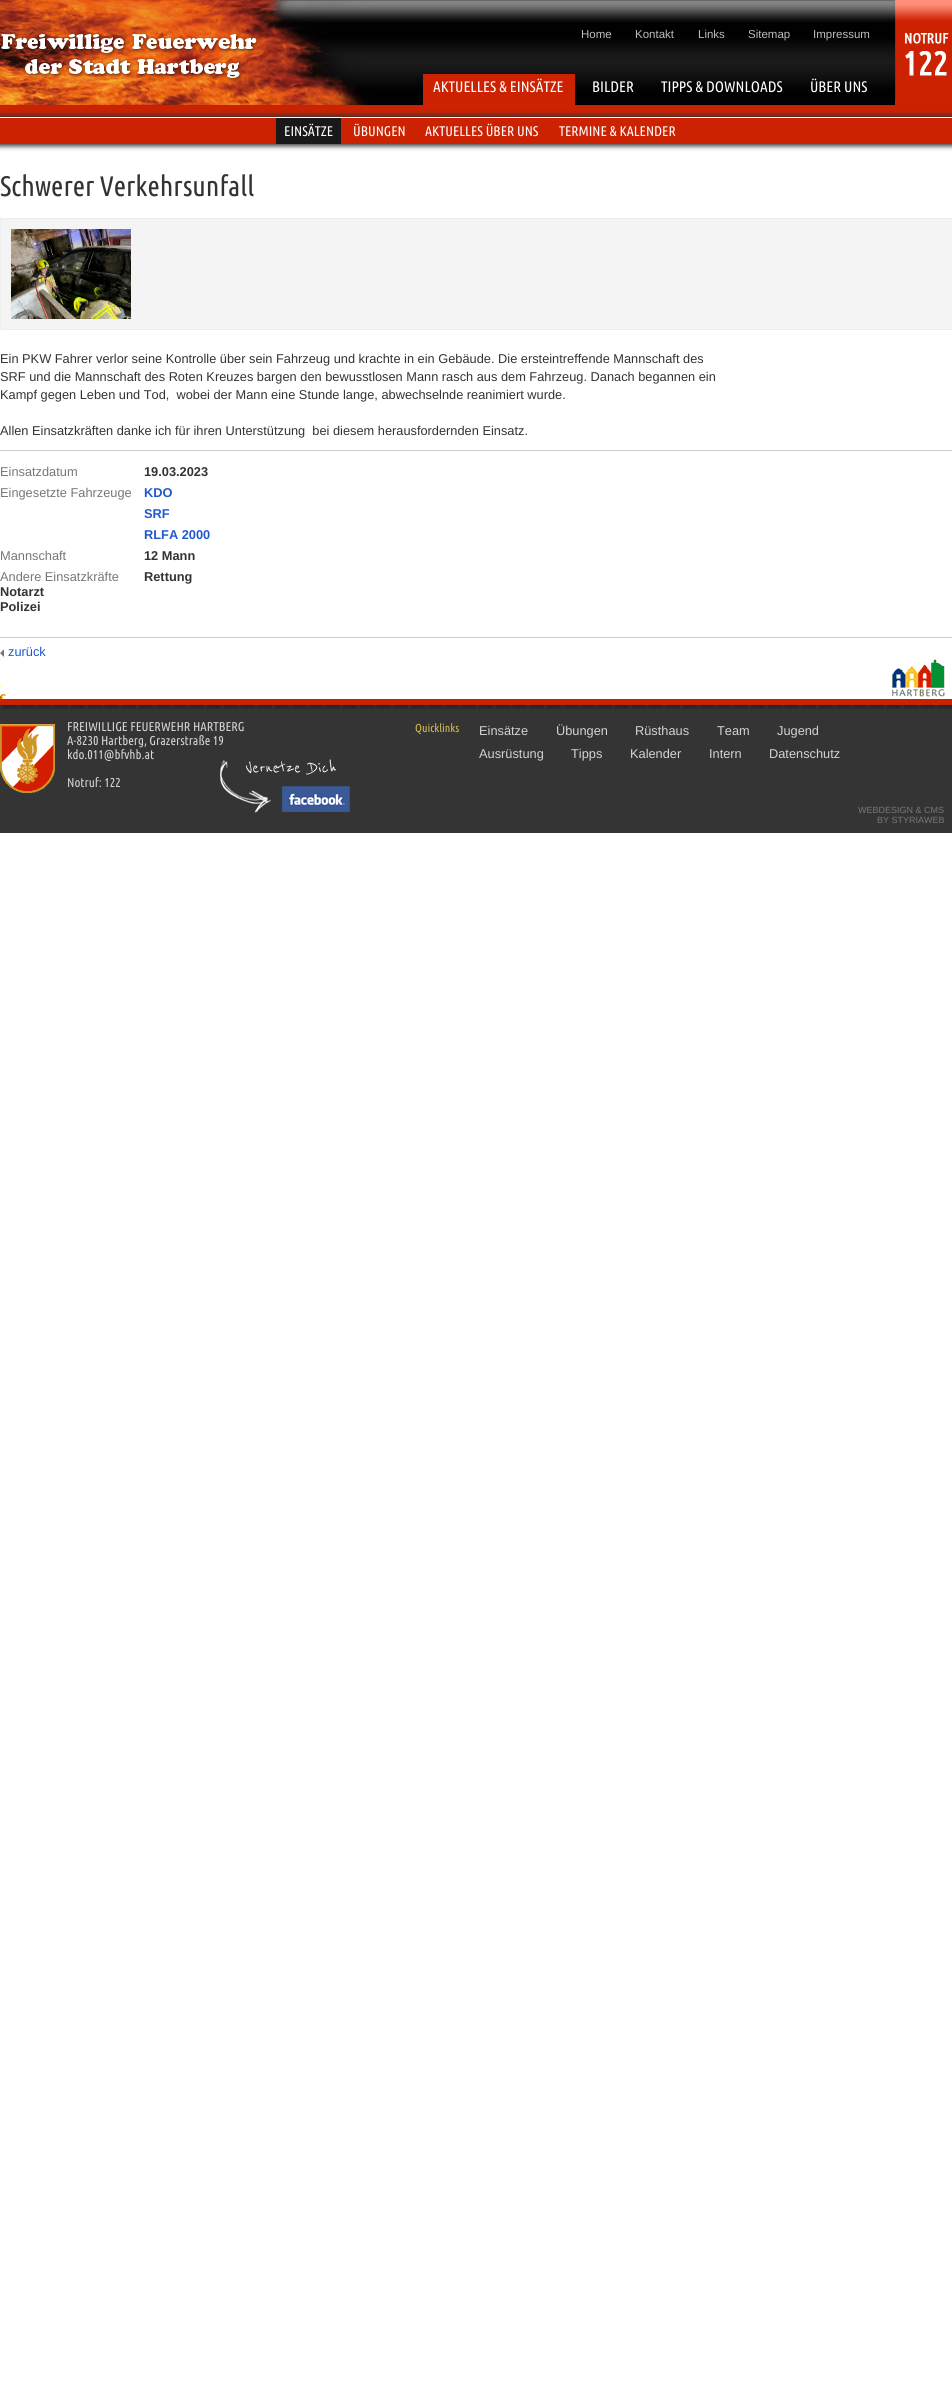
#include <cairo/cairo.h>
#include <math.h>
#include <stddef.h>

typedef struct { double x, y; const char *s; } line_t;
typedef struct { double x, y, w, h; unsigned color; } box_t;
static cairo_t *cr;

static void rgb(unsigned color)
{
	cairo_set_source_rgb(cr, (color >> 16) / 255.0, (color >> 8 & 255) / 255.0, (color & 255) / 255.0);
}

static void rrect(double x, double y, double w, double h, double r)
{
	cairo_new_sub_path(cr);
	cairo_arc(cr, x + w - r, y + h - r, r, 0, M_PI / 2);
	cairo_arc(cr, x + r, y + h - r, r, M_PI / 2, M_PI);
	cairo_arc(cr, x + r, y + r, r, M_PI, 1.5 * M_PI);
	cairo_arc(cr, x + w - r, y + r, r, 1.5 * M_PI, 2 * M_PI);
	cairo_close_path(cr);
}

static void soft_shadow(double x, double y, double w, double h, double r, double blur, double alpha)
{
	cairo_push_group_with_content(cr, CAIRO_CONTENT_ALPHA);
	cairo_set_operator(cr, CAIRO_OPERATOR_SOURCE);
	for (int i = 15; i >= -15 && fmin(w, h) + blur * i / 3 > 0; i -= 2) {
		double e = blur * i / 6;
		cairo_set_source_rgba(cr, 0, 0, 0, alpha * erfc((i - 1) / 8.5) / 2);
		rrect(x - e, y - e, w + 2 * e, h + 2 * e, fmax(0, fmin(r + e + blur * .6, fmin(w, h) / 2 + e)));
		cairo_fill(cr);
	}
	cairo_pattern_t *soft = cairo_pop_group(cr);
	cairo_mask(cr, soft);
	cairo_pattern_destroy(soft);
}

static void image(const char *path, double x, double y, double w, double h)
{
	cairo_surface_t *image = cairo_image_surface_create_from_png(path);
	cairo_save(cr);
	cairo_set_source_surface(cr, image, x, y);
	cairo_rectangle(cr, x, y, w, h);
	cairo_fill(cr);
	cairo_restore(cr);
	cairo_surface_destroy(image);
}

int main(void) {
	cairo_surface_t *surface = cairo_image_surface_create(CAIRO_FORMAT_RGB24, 952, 2400);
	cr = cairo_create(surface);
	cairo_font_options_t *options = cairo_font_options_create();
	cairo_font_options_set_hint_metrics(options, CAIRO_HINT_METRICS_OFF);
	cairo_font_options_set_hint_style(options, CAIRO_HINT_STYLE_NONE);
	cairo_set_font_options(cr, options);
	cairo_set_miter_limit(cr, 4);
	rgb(0xffffff);
	cairo_paint(cr);
	image("img/1.png", 0, 0, 952, 117);
	image("img/2.png", 0, 0, 369, 105);
	image("img/3.png", 895, 0, 57, 105);
	image("img/4.png", 0, 32, 260, 50);
	rgb(0xcc2201);
	cairo_rectangle(cr, 423, 74, 152, 32);
	cairo_fill(cr);
	rgb(0x333333);
	soft_shadow(-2, 115, 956, 31, 0, 2.5, 1);
	{
		static const box_t items[] = {
			{0, 118, 952, 26, 0xcc2201},
			{0, 117, 952, 1, 0xffffff},
			{276, 118, 65, 26, 0x191919},
		};
		for (size_t i = 0; i < sizeof items / sizeof *items; i++) {
			rgb(items[i].color);
			cairo_rectangle(cr, items[i].x, items[i].y, items[i].w, items[i].h);
			cairo_fill(cr);
		}
	}
	rgb(0xf4f4f4);
	cairo_rectangle(cr, 0.5, 218.5, 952, 111);
	cairo_fill_preserve(cr);
	rgb(0xeeeeee);
	cairo_set_line_width(cr, 1);
	cairo_stroke(cr);
	image("img/5.png", 11, 229, 120, 90);
	rgb(0xcccccc);
	cairo_rectangle(cr, 0, 450, 952, 1);
	cairo_fill(cr);
	cairo_rectangle(cr, 0, 637, 952, 1);
	cairo_fill(cr);
	image("img/6.png", 0, 649, 4, 8);
	image("img/7.png", 0, 660, 6, 39);
	image("img/8.png", 892, 659, 53, 38);
	rgb(0x343434);
	cairo_rectangle(cr, 0, 709, 952, 124);
	cairo_fill(cr);
	image("img/9.png", 0, 699, 952, 10);
	image("img/10.png", 0, 724, 55, 69);
	image("img/11.png", 220, 759, 130, 54);
	cairo_select_font_face(cr, "Liberation Sans", CAIRO_FONT_SLANT_NORMAL, CAIRO_FONT_WEIGHT_NORMAL);
	cairo_set_font_size(cr, 11.5);
	rgb(0xbebebe);
	{
		static const line_t items[] = {
			{581, 38, "Home"},
			{635, 38, "Kontakt"},
			{698, 38, "Links"},
			{748, 38, "Sitemap"},
			{813, 38, "Impressum"},
		};
		for (size_t i = 0; i < sizeof items / sizeof *items; i++) {
			cairo_move_to(cr, items[i].x, items[i].y);
			cairo_show_text(cr, items[i].s);
		}
	}
	cairo_select_font_face(cr, "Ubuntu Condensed", CAIRO_FONT_SLANT_NORMAL, CAIRO_FONT_WEIGHT_NORMAL);
	cairo_set_font_size(cr, 15.25);
	rgb(0xffffff);
	{
		static const line_t items[] = {
			{433, 92, "AKTUELLES & EINSÄTZE"},
			{592, 92, "BILDER"},
			{661, 92, "TIPPS & DOWNLOADS"},
			{810, 92, "ÜBER UNS"},
		};
		for (size_t i = 0; i < sizeof items / sizeof *items; i++) {
			cairo_move_to(cr, items[i].x, items[i].y);
			cairo_show_text(cr, items[i].s);
		}
	}
	cairo_set_font_size(cr, 14);
	{
		static const line_t items[] = {
			{284, 136, "EINSÄTZE"},
			{353, 136, "ÜBUNGEN"},
			{425, 136, "AKTUELLES ÜBER UNS"},
			{559, 136, "TERMINE & KALENDER"},
		};
		for (size_t i = 0; i < sizeof items / sizeof *items; i++) {
			cairo_move_to(cr, items[i].x, items[i].y);
			cairo_show_text(cr, items[i].s);
		}
	}
	cairo_set_font_size(cr, 28.25);
	rgb(0x333333);
	cairo_move_to(cr, 0, 196);
	cairo_show_text(cr, "Schwerer Verkehrsunfall");
	cairo_select_font_face(cr, "Liberation Sans", CAIRO_FONT_SLANT_NORMAL, CAIRO_FONT_WEIGHT_NORMAL);
	cairo_set_font_size(cr, 12.8);
	{
		static const line_t items[] = {
			{0, 363, "Ein PKW Fahrer verlor seine Kontrolle über sein Fahrzeug und krachte in ein Gebäude. Die ersteintreffende Mannschaft des"},
			{0, 381, "SRF und die Mannschaft des Roten Kreuzes bargen den bewusstlosen Mann rasch aus dem Fahrzeug. Danach begannen ein"},
			{0, 399, "Kampf gegen Leben und Tod,  wobei der Mann eine Stunde lange, abwechselnde reanimiert wurde."},
			{0, 435, "Allen Einsatzkräften danke ich für ihren Unterstützung  bei diesem herausfordernden Einsatz."},
		};
		for (size_t i = 0; i < sizeof items / sizeof *items; i++) {
			cairo_move_to(cr, items[i].x, items[i].y);
			cairo_show_text(cr, items[i].s);
		}
	}
	rgb(0x777777);
	cairo_move_to(cr, 0, 476);
	cairo_show_text(cr, "Einsatzdatum");
	cairo_select_font_face(cr, "Liberation Sans", CAIRO_FONT_SLANT_NORMAL, CAIRO_FONT_WEIGHT_BOLD);
	rgb(0x333333);
	cairo_move_to(cr, 144, 476);
	cairo_show_text(cr, "19.03.2023");
	cairo_select_font_face(cr, "Liberation Sans", CAIRO_FONT_SLANT_NORMAL, CAIRO_FONT_WEIGHT_NORMAL);
	rgb(0x777777);
	cairo_move_to(cr, 0, 497);
	cairo_show_text(cr, "Eingesetzte Fahrzeuge");
	cairo_select_font_face(cr, "Liberation Sans", CAIRO_FONT_SLANT_NORMAL, CAIRO_FONT_WEIGHT_BOLD);
	rgb(0x2059ce);
	{
		static const line_t items[] = {
			{144, 497, "KDO"},
			{144, 518, "SRF"},
			{144, 539, "RLFA 2000"},
		};
		for (size_t i = 0; i < sizeof items / sizeof *items; i++) {
			cairo_move_to(cr, items[i].x, items[i].y);
			cairo_show_text(cr, items[i].s);
		}
	}
	cairo_select_font_face(cr, "Liberation Sans", CAIRO_FONT_SLANT_NORMAL, CAIRO_FONT_WEIGHT_NORMAL);
	rgb(0x777777);
	cairo_move_to(cr, 0, 560);
	cairo_show_text(cr, "Mannschaft");
	cairo_select_font_face(cr, "Liberation Sans", CAIRO_FONT_SLANT_NORMAL, CAIRO_FONT_WEIGHT_BOLD);
	rgb(0x333333);
	cairo_move_to(cr, 144, 560);
	cairo_show_text(cr, "12 Mann");
	cairo_select_font_face(cr, "Liberation Sans", CAIRO_FONT_SLANT_NORMAL, CAIRO_FONT_WEIGHT_NORMAL);
	rgb(0x777777);
	cairo_move_to(cr, 0, 581);
	cairo_show_text(cr, "Andere Einsatzkräfte");
	cairo_select_font_face(cr, "Liberation Sans", CAIRO_FONT_SLANT_NORMAL, CAIRO_FONT_WEIGHT_BOLD);
	rgb(0x333333);
	{
		static const line_t items[] = {
			{144, 581, "Rettung"},
			{0, 596, "Notarzt"},
			{0, 611, "Polizei"},
		};
		for (size_t i = 0; i < sizeof items / sizeof *items; i++) {
			cairo_move_to(cr, items[i].x, items[i].y);
			cairo_show_text(cr, items[i].s);
		}
	}
	cairo_select_font_face(cr, "Liberation Sans", CAIRO_FONT_SLANT_NORMAL, CAIRO_FONT_WEIGHT_NORMAL);
	rgb(0x2059ce);
	cairo_move_to(cr, 8, 656);
	cairo_show_text(cr, "zurück");
	cairo_select_font_face(cr, "Ubuntu Condensed", CAIRO_FONT_SLANT_NORMAL, CAIRO_FONT_WEIGHT_NORMAL);
	rgb(0xd3d3d3);
	{
		static const line_t items[] = {
			{67, 731, "FREIWILLIGE FEUERWEHR HARTBERG"},
			{67, 745, "A-8230 Hartberg, Grazerstraße 19"},
			{67, 759, "kdo.011@bfvhb.at"},
			{67, 787, "Notruf: 122"},
		};
		for (size_t i = 0; i < sizeof items / sizeof *items; i++) {
			cairo_move_to(cr, items[i].x, items[i].y);
			cairo_show_text(cr, items[i].s);
		}
	}
	cairo_set_font_size(cr, 11.5);
	rgb(0xd2bb50);
	cairo_move_to(cr, 415, 732);
	cairo_show_text(cr, "Quicklinks");
	cairo_select_font_face(cr, "Liberation Sans", CAIRO_FONT_SLANT_NORMAL, CAIRO_FONT_WEIGHT_NORMAL);
	cairo_set_font_size(cr, 12.8);
	rgb(0xd3d3d3);
	{
		static const line_t items[] = {
			{479, 735, "Einsätze"},
			{556, 735, "Übungen"},
			{635, 735, "Rüsthaus"},
			{717, 735, "Team"},
			{777, 735, "Jugend"},
			{479, 758, "Ausrüstung"},
			{571, 758, "Tipps"},
			{630, 758, "Kalender"},
			{709, 758, "Intern"},
			{769, 758, "Datenschutz"},
		};
		for (size_t i = 0; i < sizeof items / sizeof *items; i++) {
			cairo_move_to(cr, items[i].x, items[i].y);
			cairo_show_text(cr, items[i].s);
		}
	}
	cairo_set_font_size(cr, 9);
	rgb(0x777777);
	cairo_move_to(cr, 858, 813);
	cairo_show_text(cr, "WEBDESIGN & CMS");
	cairo_move_to(cr, 877, 823);
	cairo_show_text(cr, "BY STYRIAWEB");
	cairo_surface_write_to_png(surface, "page.png");
	cairo_font_options_destroy(options);
	cairo_destroy(cr);
	cairo_surface_destroy(surface);
	return 0;
}
